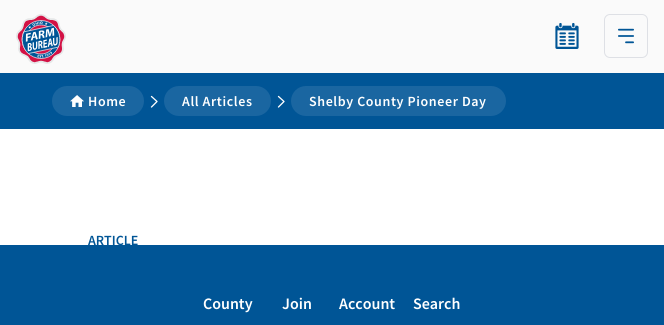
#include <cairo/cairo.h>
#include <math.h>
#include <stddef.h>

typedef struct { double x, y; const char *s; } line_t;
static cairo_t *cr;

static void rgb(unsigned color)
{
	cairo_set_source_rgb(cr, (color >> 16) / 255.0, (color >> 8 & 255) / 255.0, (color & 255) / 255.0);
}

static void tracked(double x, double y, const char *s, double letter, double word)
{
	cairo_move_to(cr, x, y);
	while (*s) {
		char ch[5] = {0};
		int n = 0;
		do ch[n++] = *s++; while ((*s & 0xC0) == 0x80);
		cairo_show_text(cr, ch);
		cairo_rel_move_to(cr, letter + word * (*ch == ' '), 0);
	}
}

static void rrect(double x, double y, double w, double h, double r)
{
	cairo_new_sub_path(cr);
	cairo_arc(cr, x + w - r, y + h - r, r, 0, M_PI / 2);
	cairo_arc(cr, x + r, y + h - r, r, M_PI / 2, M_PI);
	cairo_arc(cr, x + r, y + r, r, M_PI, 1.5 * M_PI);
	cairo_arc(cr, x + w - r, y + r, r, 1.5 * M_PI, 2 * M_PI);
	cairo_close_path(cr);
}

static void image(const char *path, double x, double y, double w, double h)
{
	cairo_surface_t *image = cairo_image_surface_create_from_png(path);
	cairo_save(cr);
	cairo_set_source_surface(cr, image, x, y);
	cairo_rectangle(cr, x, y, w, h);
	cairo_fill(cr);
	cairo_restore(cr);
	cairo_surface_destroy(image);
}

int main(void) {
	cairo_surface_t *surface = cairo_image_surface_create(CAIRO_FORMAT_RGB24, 664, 325);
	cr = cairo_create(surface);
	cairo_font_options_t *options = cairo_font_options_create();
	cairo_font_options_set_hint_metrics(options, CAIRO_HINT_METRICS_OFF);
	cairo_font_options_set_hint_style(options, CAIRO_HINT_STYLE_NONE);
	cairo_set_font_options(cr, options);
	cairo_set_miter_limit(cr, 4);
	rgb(0xffffff);
	cairo_paint(cr);
	rgb(0xfafafa);
	cairo_rectangle(cr, 0, 0, 664, 73);
	cairo_fill(cr);
	image("img/1.png", 16, 14, 50, 50);
	image("img/2.png", 555, 23, 24, 26);
	rrect(604.5, 14.5, 43, 43, 5.5);
	rgb(0xdee0e5);
	cairo_set_line_width(cr, 1);
	cairo_stroke(cr);
	image("img/3.png", 618, 28, 16, 16);
	rgb(0x005596);
	cairo_rectangle(cr, 0, 73, 664, 56);
	cairo_fill(cr);
	rgb(0x1a66a1);
	rrect(53, 87, 90, 28, 14);
	cairo_fill_preserve(cr);
	cairo_set_line_width(cr, 2);
	cairo_stroke(cr);
	image("img/4.png", 70, 95, 14, 12);
	cairo_new_path(cr);
	cairo_move_to(cr, 151.5, 107);
	cairo_line_to(cr, 157, 101.5);
	cairo_line_to(cr, 151.5, 96.5);
	rgb(0xffffff);
	cairo_set_line_width(cr, 1.3);
	cairo_set_line_cap(cr, CAIRO_LINE_CAP_ROUND);
	cairo_set_line_join(cr, CAIRO_LINE_JOIN_ROUND);
	cairo_stroke(cr);
	rgb(0x1a66a1);
	rrect(165, 87, 105, 28, 14);
	cairo_fill_preserve(cr);
	cairo_set_line_width(cr, 2);
	cairo_set_line_cap(cr, CAIRO_LINE_CAP_BUTT);
	cairo_set_line_join(cr, CAIRO_LINE_JOIN_MITER);
	cairo_stroke(cr);
	cairo_new_path(cr);
	cairo_move_to(cr, 278.5, 107);
	cairo_line_to(cr, 284, 101.5);
	cairo_line_to(cr, 278.5, 96.5);
	rgb(0xffffff);
	cairo_set_line_width(cr, 1.3);
	cairo_set_line_cap(cr, CAIRO_LINE_CAP_ROUND);
	cairo_set_line_join(cr, CAIRO_LINE_JOIN_ROUND);
	cairo_stroke(cr);
	rgb(0x1a66a1);
	rrect(292, 87, 213, 28, 14);
	cairo_fill_preserve(cr);
	cairo_set_line_width(cr, 2);
	cairo_set_line_cap(cr, CAIRO_LINE_CAP_BUTT);
	cairo_set_line_join(cr, CAIRO_LINE_JOIN_MITER);
	cairo_stroke(cr);
	rgb(0x005596);
	cairo_rectangle(cr, 0, 245, 664, 80);
	cairo_fill(cr);
	cairo_select_font_face(cr, "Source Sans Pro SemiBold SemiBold", CAIRO_FONT_SLANT_NORMAL, CAIRO_FONT_WEIGHT_NORMAL);
	cairo_set_font_size(cr, 14);
	rgb(0xffffff);
	{
		static const line_t items[] = {
			{88, 106, "Home"},
			{182, 106, "All Articles"},
			{309, 106, "Shelby County Pioneer Day"},
		};
		for (size_t i = 0; i < sizeof items / sizeof *items; i++) {
			tracked(items[i].x, items[i].y, items[i].s, 0.6, 0);
		}
	}
	rgb(0x005596);
	cairo_move_to(cr, 88, 245);
	cairo_show_text(cr, "ARTICLE");
	cairo_set_font_size(cr, 16);
	rgb(0xffffff);
	{
		static const line_t items[] = {
			{203, 309, "County"},
			{282, 309, "Join"},
			{339, 309, "Account"},
			{413, 309, "Search"},
		};
		for (size_t i = 0; i < sizeof items / sizeof *items; i++) {
			cairo_move_to(cr, items[i].x, items[i].y);
			cairo_show_text(cr, items[i].s);
		}
	}
	cairo_surface_write_to_png(surface, "page.png");
	cairo_font_options_destroy(options);
	cairo_destroy(cr);
	cairo_surface_destroy(surface);
	return 0;
}
